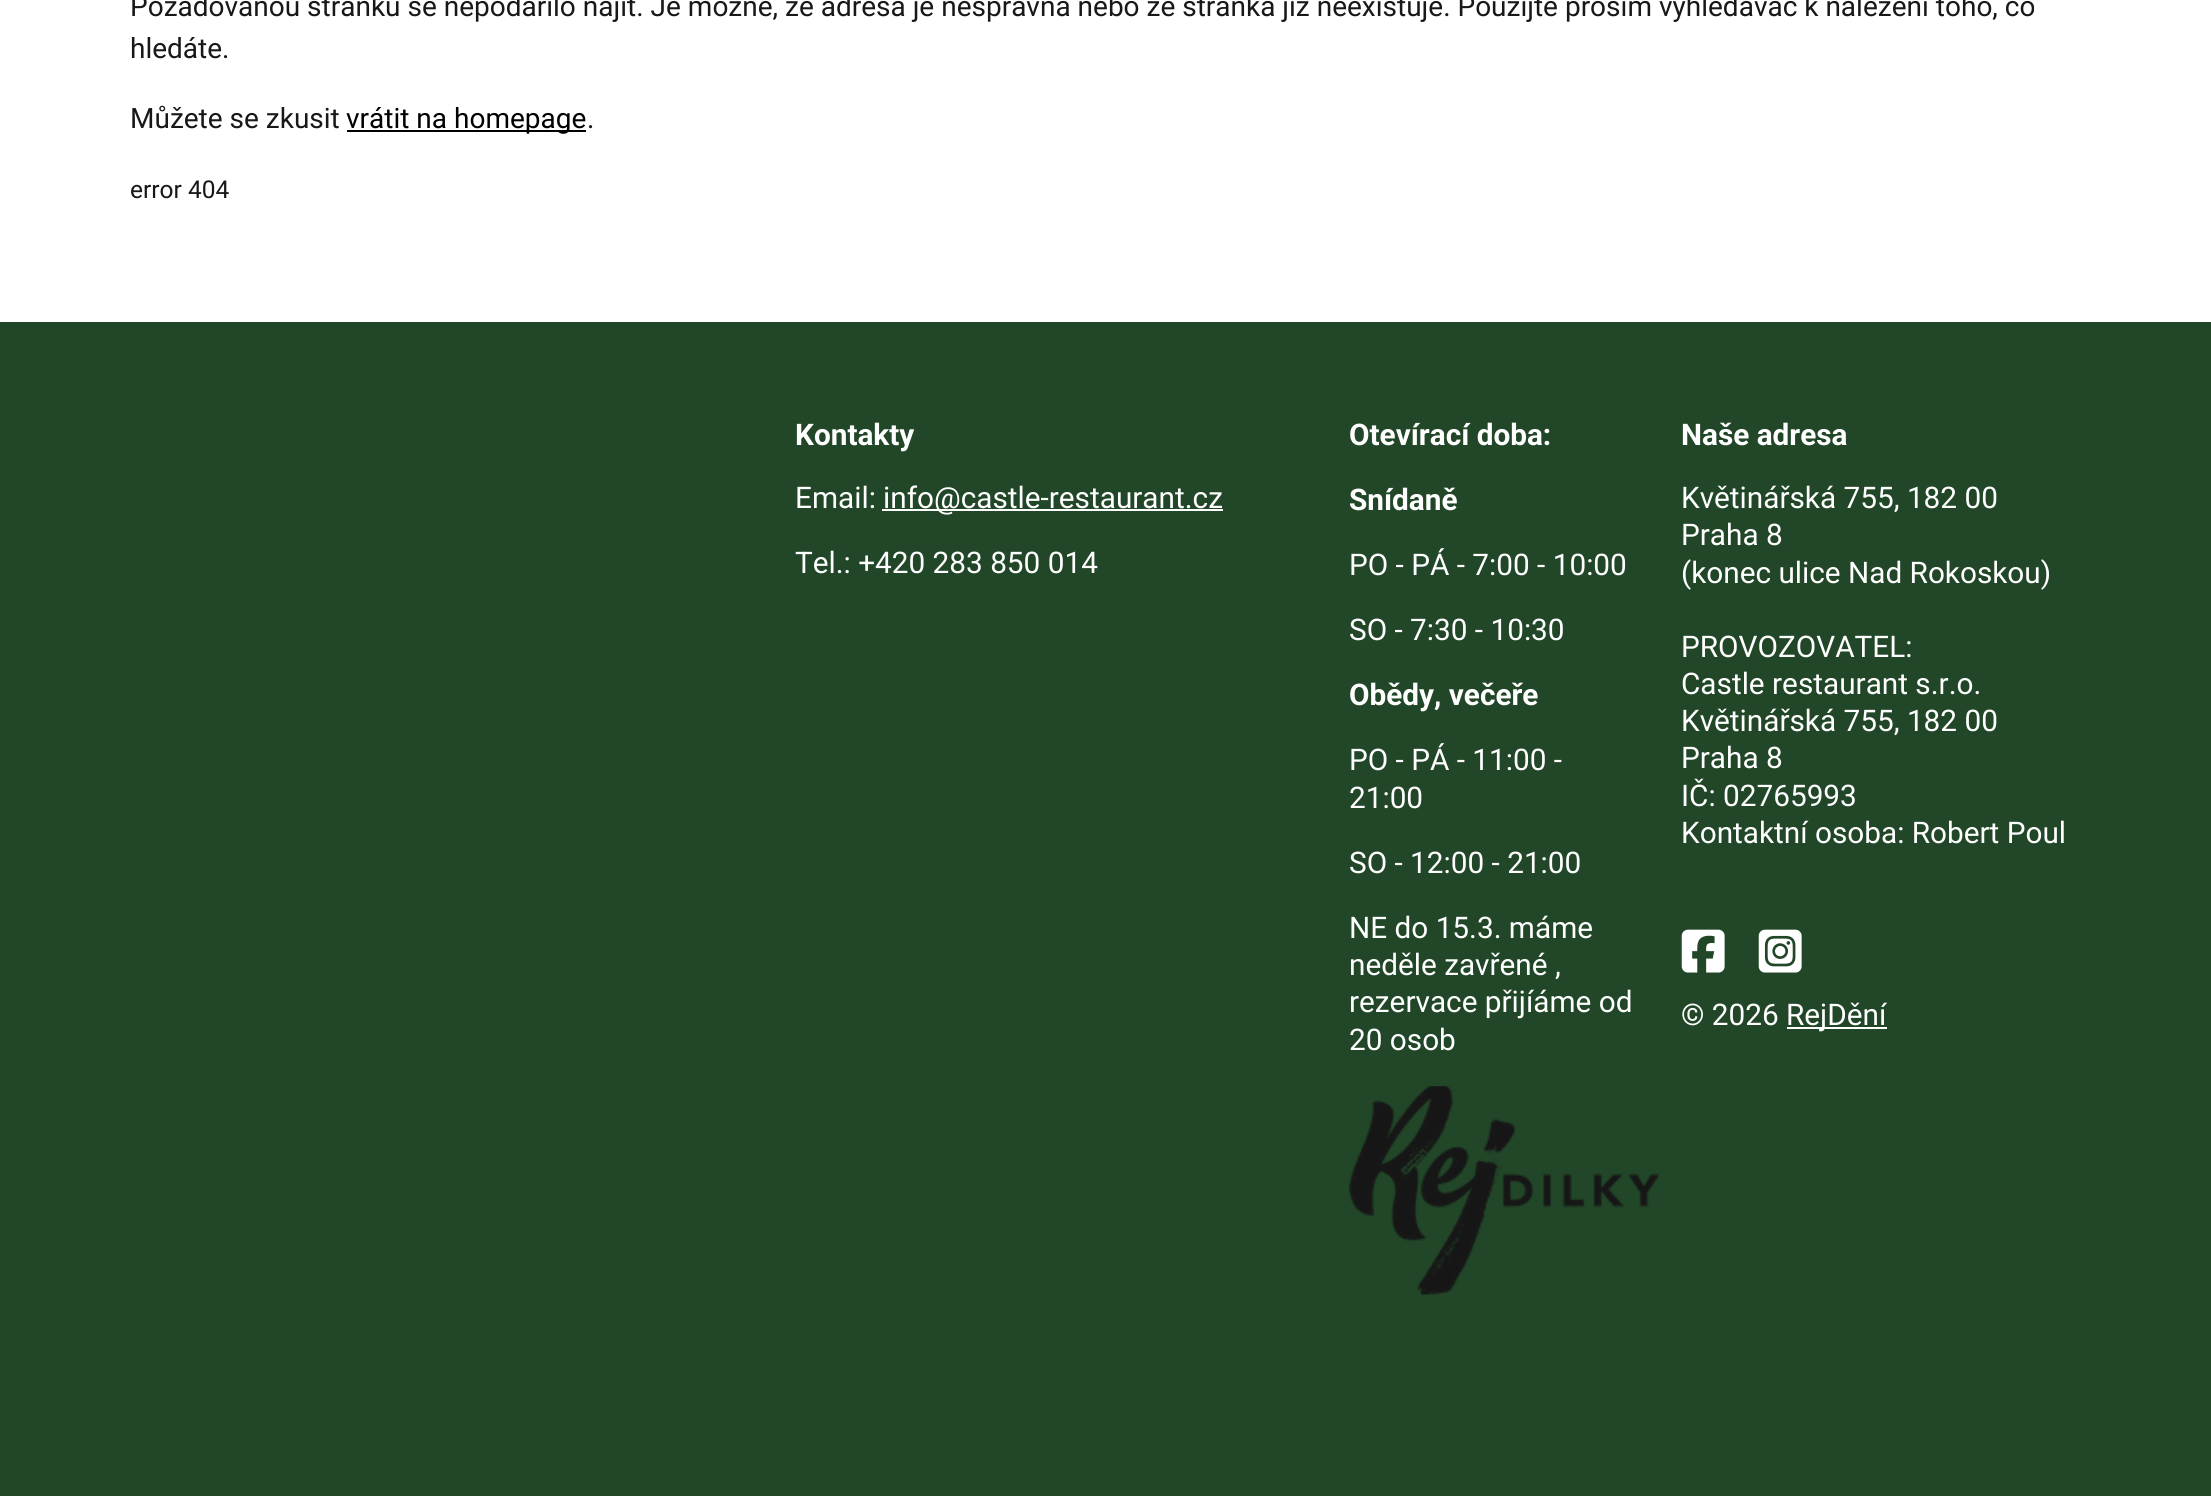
#include <cairo/cairo.h>
#include <math.h>
#include <stddef.h>

typedef struct { double x, y; const char *s; } line_t;
typedef struct { double x, y, w, h; unsigned color; } box_t;
static cairo_t *cr;

static void rgb(unsigned color)
{
	cairo_set_source_rgb(cr, (color >> 16) / 255.0, (color >> 8 & 255) / 255.0, (color & 255) / 255.0);
}

static void image(const char *path, double x, double y, double w, double h)
{
	cairo_surface_t *image = cairo_image_surface_create_from_png(path);
	cairo_save(cr);
	cairo_set_source_surface(cr, image, x, y);
	cairo_rectangle(cr, x, y, w, h);
	cairo_fill(cr);
	cairo_restore(cr);
	cairo_surface_destroy(image);
}

int main(void) {
	cairo_surface_t *surface = cairo_image_surface_create(CAIRO_FORMAT_RGB24, 2211, 1496);
	cr = cairo_create(surface);
	cairo_font_options_t *options = cairo_font_options_create();
	cairo_font_options_set_hint_metrics(options, CAIRO_HINT_METRICS_OFF);
	cairo_font_options_set_hint_style(options, CAIRO_HINT_STYLE_NONE);
	cairo_set_font_options(cr, options);
	cairo_set_miter_limit(cr, 4);
	rgb(0xffffff);
	cairo_paint(cr);
	{
		static const box_t items[] = {
			{347, 130, 239, 2, 0x000000},
			{0, 322, 2211, 1174, 0x224728},
			{882, 509, 341, 2, 0xffffff},
		};
		for (size_t i = 0; i < sizeof items / sizeof *items; i++) {
			rgb(items[i].color);
			cairo_rectangle(cr, items[i].x, items[i].y, items[i].w, items[i].h);
			cairo_fill(cr);
		}
	}
	image("img/1.png", 1349, 1086, 310, 209);
	image("img/2.png", 1681, 929, 44, 44);
	image("img/3.png", 1758, 929, 44, 44);
	cairo_rectangle(cr, 1787, 1027, 100, 2);
	cairo_fill(cr);
	cairo_select_font_face(cr, "Roboto", CAIRO_FONT_SLANT_NORMAL, CAIRO_FONT_WEIGHT_NORMAL);
	cairo_set_font_size(cr, 28);
	rgb(0x1a171b);
	{
		static const line_t items[] = {
			{130, 16, "Požadovanou stránku se nepodařilo najít. Je možné, že adresa je nesprávná nebo že stránka již neexistuje. Použijte prosím vyhledávač k nalezení toho, co"},
			{130, 58, "hledáte."},
			{130, 128, "Můžete se zkusit"},
		};
		for (size_t i = 0; i < sizeof items / sizeof *items; i++) {
			cairo_move_to(cr, items[i].x, items[i].y);
			cairo_show_text(cr, items[i].s);
		}
	}
	rgb(0x000000);
	cairo_move_to(cr, 346, 128);
	cairo_show_text(cr, "vrátit na homepage");
	rgb(0x1a171b);
	cairo_move_to(cr, 587, 128);
	cairo_show_text(cr, ".");
	cairo_set_font_size(cr, 24.5);
	cairo_move_to(cr, 130, 198);
	cairo_show_text(cr, "error 404");
	cairo_select_font_face(cr, "Roboto", CAIRO_FONT_SLANT_NORMAL, CAIRO_FONT_WEIGHT_BOLD);
	cairo_set_font_size(cr, 29.75);
	rgb(0xffffff);
	cairo_move_to(cr, 795, 445);
	cairo_show_text(cr, "Kontakty");
	cairo_select_font_face(cr, "Roboto", CAIRO_FONT_SLANT_NORMAL, CAIRO_FONT_WEIGHT_NORMAL);
	{
		static const line_t items[] = {
			{795, 508, "Email:"},
			{883, 508, "info@castle-restaurant.cz"},
			{795, 573, "Tel.: +420 283 850 014"},
		};
		for (size_t i = 0; i < sizeof items / sizeof *items; i++) {
			cairo_move_to(cr, items[i].x, items[i].y);
			cairo_show_text(cr, items[i].s);
		}
	}
	cairo_select_font_face(cr, "Roboto", CAIRO_FONT_SLANT_NORMAL, CAIRO_FONT_WEIGHT_BOLD);
	cairo_move_to(cr, 1349, 445);
	cairo_show_text(cr, "Otevírací doba:");
	cairo_move_to(cr, 1349, 510);
	cairo_show_text(cr, "Snídaně");
	cairo_select_font_face(cr, "Roboto", CAIRO_FONT_SLANT_NORMAL, CAIRO_FONT_WEIGHT_NORMAL);
	cairo_move_to(cr, 1349, 575);
	cairo_show_text(cr, "PO - PÁ - 7:00 - 10:00");
	cairo_move_to(cr, 1349, 640);
	cairo_show_text(cr, "SO - 7:30 - 10:30");
	cairo_select_font_face(cr, "Roboto", CAIRO_FONT_SLANT_NORMAL, CAIRO_FONT_WEIGHT_BOLD);
	cairo_move_to(cr, 1349, 705);
	cairo_show_text(cr, "Obědy, večeře");
	cairo_select_font_face(cr, "Roboto", CAIRO_FONT_SLANT_NORMAL, CAIRO_FONT_WEIGHT_NORMAL);
	{
		static const line_t items[] = {
			{1349, 770, "PO - PÁ - 11:00 -"},
			{1349, 808, "21:00"},
			{1349, 873, "SO - 12:00 - 21:00"},
			{1349, 938, "NE do 15.3. máme"},
			{1349, 975, "neděle zavřené ,"},
			{1349, 1012, "rezervace přijíáme od"},
			{1349, 1050, "20 osob"},
		};
		for (size_t i = 0; i < sizeof items / sizeof *items; i++) {
			cairo_move_to(cr, items[i].x, items[i].y);
			cairo_show_text(cr, items[i].s);
		}
	}
	cairo_select_font_face(cr, "Roboto", CAIRO_FONT_SLANT_NORMAL, CAIRO_FONT_WEIGHT_BOLD);
	cairo_move_to(cr, 1681, 445);
	cairo_show_text(cr, "Naše adresa");
	cairo_select_font_face(cr, "Roboto", CAIRO_FONT_SLANT_NORMAL, CAIRO_FONT_WEIGHT_NORMAL);
	{
		static const line_t items[] = {
			{1681, 508, "Květinářská 755, 182 00"},
			{1681, 545, "Praha 8"},
			{1681, 583, "(konec ulice Nad Rokoskou)"},
			{1681, 657, "PROVOZOVATEL:"},
			{1681, 694, "Castle restaurant s.r.o."},
			{1681, 731, "Květinářská 755, 182 00"},
			{1681, 768, "Praha 8"},
			{1681, 806, "IČ: 02765993"},
			{1681, 843, "Kontaktní osoba: Robert Poul"},
			{1681, 1025, "© 2026"},
			{1786, 1025, "RejDění"},
		};
		for (size_t i = 0; i < sizeof items / sizeof *items; i++) {
			cairo_move_to(cr, items[i].x, items[i].y);
			cairo_show_text(cr, items[i].s);
		}
	}
	cairo_surface_write_to_png(surface, "page.png");
	cairo_font_options_destroy(options);
	cairo_destroy(cr);
	cairo_surface_destroy(surface);
	return 0;
}
